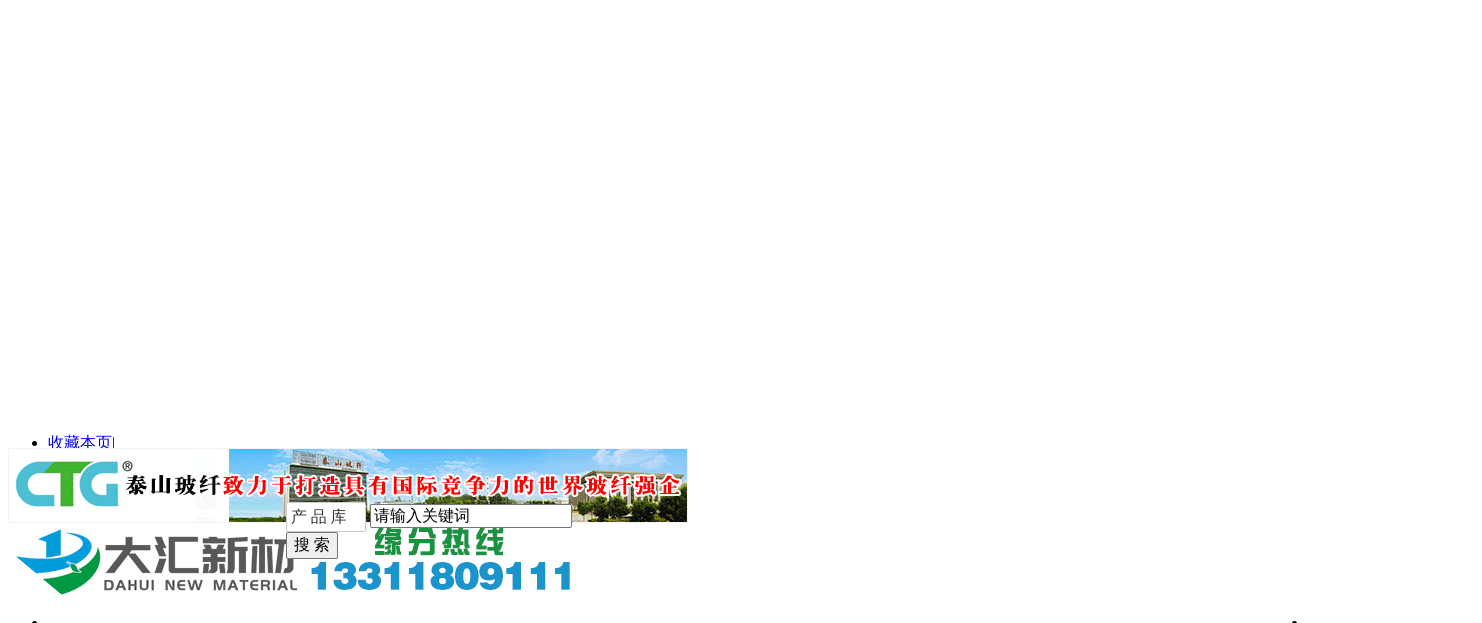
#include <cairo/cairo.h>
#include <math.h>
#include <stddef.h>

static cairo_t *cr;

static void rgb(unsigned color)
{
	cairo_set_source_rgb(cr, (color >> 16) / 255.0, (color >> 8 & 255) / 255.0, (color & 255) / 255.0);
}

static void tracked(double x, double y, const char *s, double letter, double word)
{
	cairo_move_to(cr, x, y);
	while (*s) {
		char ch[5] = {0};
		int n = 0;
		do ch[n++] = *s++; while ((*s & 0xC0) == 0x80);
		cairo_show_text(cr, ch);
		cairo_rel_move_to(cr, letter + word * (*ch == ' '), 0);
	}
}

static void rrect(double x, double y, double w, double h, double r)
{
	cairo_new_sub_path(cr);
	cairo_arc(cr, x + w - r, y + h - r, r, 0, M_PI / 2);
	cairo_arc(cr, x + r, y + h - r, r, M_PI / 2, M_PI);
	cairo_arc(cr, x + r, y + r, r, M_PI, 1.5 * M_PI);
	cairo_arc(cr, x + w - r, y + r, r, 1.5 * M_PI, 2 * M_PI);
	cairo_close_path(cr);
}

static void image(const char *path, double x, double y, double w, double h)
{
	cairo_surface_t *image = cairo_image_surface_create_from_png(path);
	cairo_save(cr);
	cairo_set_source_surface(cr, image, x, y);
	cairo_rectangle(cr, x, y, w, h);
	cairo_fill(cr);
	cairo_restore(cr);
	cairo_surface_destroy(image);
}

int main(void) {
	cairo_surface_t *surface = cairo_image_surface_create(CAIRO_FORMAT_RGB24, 1482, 623);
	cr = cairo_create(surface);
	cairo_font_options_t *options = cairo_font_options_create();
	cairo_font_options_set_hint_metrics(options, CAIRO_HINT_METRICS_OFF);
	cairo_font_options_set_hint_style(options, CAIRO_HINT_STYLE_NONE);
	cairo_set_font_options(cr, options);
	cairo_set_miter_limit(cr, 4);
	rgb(0xffffff);
	cairo_paint(cr);
	rgb(0x000000);
	cairo_arc(cr, 34.5, 443.5, 2.5, 0, 2 * M_PI);
	cairo_fill(cr);
	image("img/2.png", 16, 523, 554, 72);
	rgb(0xefefef);
	rrect(286.5, 532.5, 51, 26, 1.5);
	cairo_fill_preserve(cr);
	rgb(0x767676);
	cairo_set_line_width(cr, 1);
	cairo_stroke(cr);
	rgb(0x000000);
	cairo_arc(cr, 34.5, 623.5, 2.5, 0, 2 * M_PI);
	cairo_fill(cr);
	cairo_arc(cr, 1294.5, 623.5, 2.5, 0, 2 * M_PI);
	cairo_fill(cr);
	cairo_select_font_face(cr, "WenQuanYi Zen Hei Medium", CAIRO_FONT_SLANT_NORMAL, CAIRO_FONT_WEIGHT_NORMAL);
	cairo_set_font_size(cr, 16);
	rgb(0x0000ee);
	cairo_move_to(cr, 48, 448);
	cairo_show_text(cr, "收藏本页");
	cairo_select_font_face(cr, "Liberation Serif", CAIRO_FONT_SLANT_NORMAL, CAIRO_FONT_WEIGHT_NORMAL);
	rgb(0x000000);
	cairo_move_to(cr, 112, 448);
	cairo_show_text(cr, "|");
	cairo_select_font_face(cr, "WenQuanYi Zen Hei Medium", CAIRO_FONT_SLANT_NORMAL, CAIRO_FONT_WEIGHT_NORMAL);
	tracked(294, 550, "搜 索", 0, -1);
	image("img/1.png", 8, 448, 680, 75);
	rgb(0xffffff);
	rrect(370.5, 504.5, 201, 23, 1.5);
	cairo_fill_preserve(cr);
	rgb(0x767676);
	cairo_stroke(cr);
	rgb(0x000000);
	cairo_move_to(cr, 374, 521);
	cairo_show_text(cr, "请输入关键词");
	rgb(0xffffff);
	rrect(286.5, 502.5, 79, 29, 1.5);
	cairo_fill_preserve(cr);
	rgb(0xcccccc);
	cairo_stroke(cr);
	rgb(0x333333);
	tracked(291, 522, "产 品 库", 0, -1);
	cairo_surface_write_to_png(surface, "page.png");
	cairo_font_options_destroy(options);
	cairo_destroy(cr);
	cairo_surface_destroy(surface);
	return 0;
}
